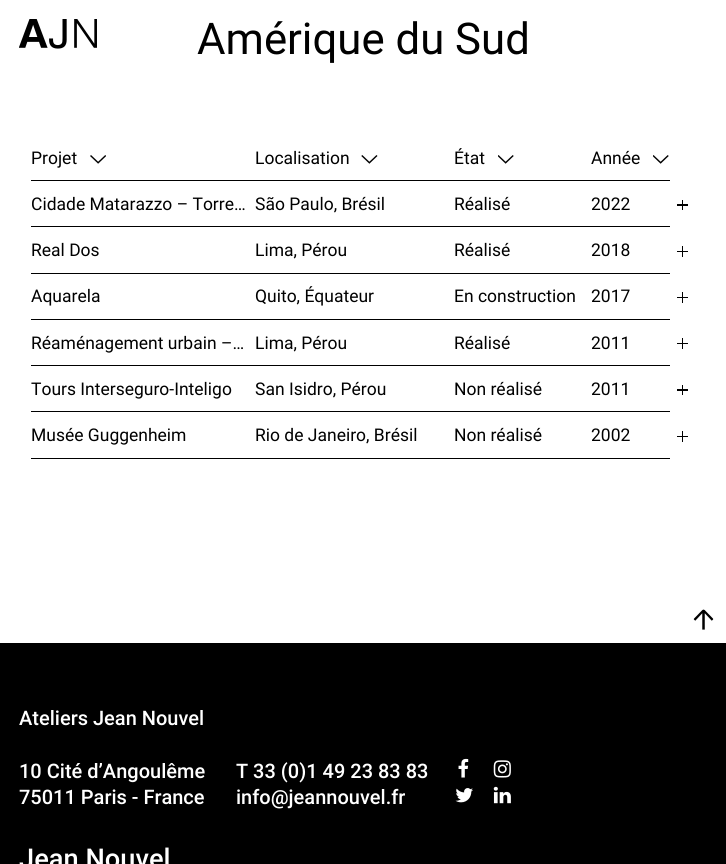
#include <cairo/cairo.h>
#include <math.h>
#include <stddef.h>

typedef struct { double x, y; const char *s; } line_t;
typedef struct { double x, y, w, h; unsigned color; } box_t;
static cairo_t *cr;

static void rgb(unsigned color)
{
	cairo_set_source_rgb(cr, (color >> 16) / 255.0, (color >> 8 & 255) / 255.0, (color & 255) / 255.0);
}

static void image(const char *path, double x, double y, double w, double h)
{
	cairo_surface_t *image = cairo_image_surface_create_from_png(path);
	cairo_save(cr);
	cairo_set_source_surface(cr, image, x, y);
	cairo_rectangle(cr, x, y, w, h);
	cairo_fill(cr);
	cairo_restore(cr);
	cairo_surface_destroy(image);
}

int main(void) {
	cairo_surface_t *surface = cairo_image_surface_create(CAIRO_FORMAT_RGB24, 726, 864);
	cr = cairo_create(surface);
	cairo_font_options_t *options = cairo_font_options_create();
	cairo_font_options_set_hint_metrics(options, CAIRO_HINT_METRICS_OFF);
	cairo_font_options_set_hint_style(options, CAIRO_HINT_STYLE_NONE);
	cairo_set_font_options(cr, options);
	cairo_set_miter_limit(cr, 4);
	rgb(0xffffff);
	cairo_paint(cr);
	image("img/1.png", 19, 19, 78, 30);
	rgb(0x000000);
	cairo_rectangle(cr, 31, 180, 639, 1);
	cairo_fill(cr);
	image("img/2.png", 90, 155, 16, 9);
	image("img/3.png", 361, 155, 17, 9);
	image("img/4.png", 498, 155, 16, 9);
	image("img/4.png", 653, 155, 16, 9);
	{
		static const box_t items[] = {
			{31, 226, 639, 1, 0x000000},
			{682, 200, 1, 10, 0x000000},
			{677, 204, 11, 2, 0x000000},
			{31, 273, 639, 1, 0x000000},
			{682, 246, 1, 11, 0x000000},
			{677, 251, 11, 1, 0x000000},
			{31, 319, 639, 1, 0x000000},
			{682, 292, 1, 11, 0x000000},
			{677, 297, 11, 1, 0x000000},
			{31, 365, 639, 1, 0x000000},
			{682, 338, 1, 11, 0x000000},
			{677, 343, 11, 1, 0x000000},
			{31, 411, 639, 1, 0x000000},
			{682, 385, 1, 10, 0x000000},
			{677, 389, 11, 2, 0x000000},
			{31, 458, 639, 1, 0x000000},
			{682, 431, 1, 11, 0x000000},
			{677, 436, 11, 1, 0x000000},
			{0, 643, 726, 221, 0x000000},
		};
		for (size_t i = 0; i < sizeof items / sizeof *items; i++) {
			rgb(items[i].color);
			cairo_rectangle(cr, items[i].x, items[i].y, items[i].w, items[i].h);
			cairo_fill(cr);
		}
	}
	image("img/5.png", 693, 609, 21, 21);
	image("img/6.png", 458, 758, 11, 20);
	image("img/7.png", 493, 760, 18, 18);
	image("img/8.png", 455, 788, 18, 15);
	image("img/9.png", 493, 786, 18, 18);
	cairo_select_font_face(cr, "Roboto", CAIRO_FONT_SLANT_NORMAL, CAIRO_FONT_WEIGHT_NORMAL);
	cairo_set_font_size(cr, 43.75);
	cairo_move_to(cr, 197, 54);
	cairo_show_text(cr, "Amérique du Sud");
	cairo_set_font_size(cr, 17.5);
	{
		static const line_t items[] = {
			{31, 164, "Projet"},
			{255, 164, "Localisation"},
			{454, 164, "État"},
			{591, 164, "Année"},
			{31, 210, "Cidade Matarazzo – Torre…"},
			{255, 210, "São Paulo, Brésil"},
			{454, 210, "Réalisé"},
			{591, 210, "2022"},
			{31, 256, "Real Dos"},
			{255, 256, "Lima, Pérou"},
			{454, 256, "Réalisé"},
			{591, 256, "2018"},
			{31, 302, "Aquarela"},
			{255, 302, "Quito, Équateur"},
			{454, 302, "En construction"},
			{591, 302, "2017"},
			{31, 349, "Réaménagement urbain –…"},
			{255, 349, "Lima, Pérou"},
			{454, 349, "Réalisé"},
			{591, 349, "2011"},
			{31, 395, "Tours Interseguro-Inteligo"},
			{255, 395, "San Isidro, Pérou"},
			{454, 395, "Non réalisé"},
			{591, 395, "2011"},
			{31, 441, "Musée Guggenheim"},
			{255, 441, "Rio de Janeiro, Brésil"},
			{454, 441, "Non réalisé"},
			{591, 441, "2002"},
		};
		for (size_t i = 0; i < sizeof items / sizeof *items; i++) {
			cairo_move_to(cr, items[i].x, items[i].y);
			cairo_show_text(cr, items[i].s);
		}
	}
	cairo_select_font_face(cr, "Roboto Medium", CAIRO_FONT_SLANT_NORMAL, CAIRO_FONT_WEIGHT_NORMAL);
	cairo_set_font_size(cr, 20);
	rgb(0xffffff);
	{
		static const line_t items[] = {
			{19, 725, "Ateliers Jean Nouvel"},
			{19, 778, "10 Cité d’Angoulême"},
			{19, 804, "75011 Paris - France"},
			{236, 778, "T 33 (0)1 49 23 83 83"},
			{236, 804, "info@jeannouvel.fr"},
		};
		for (size_t i = 0; i < sizeof items / sizeof *items; i++) {
			cairo_move_to(cr, items[i].x, items[i].y);
			cairo_show_text(cr, items[i].s);
		}
	}
	cairo_set_font_size(cr, 27.25);
	cairo_move_to(cr, 19, 868);
	cairo_show_text(cr, "Jean Nouvel");
	cairo_surface_write_to_png(surface, "page.png");
	cairo_font_options_destroy(options);
	cairo_destroy(cr);
	cairo_surface_destroy(surface);
	return 0;
}
